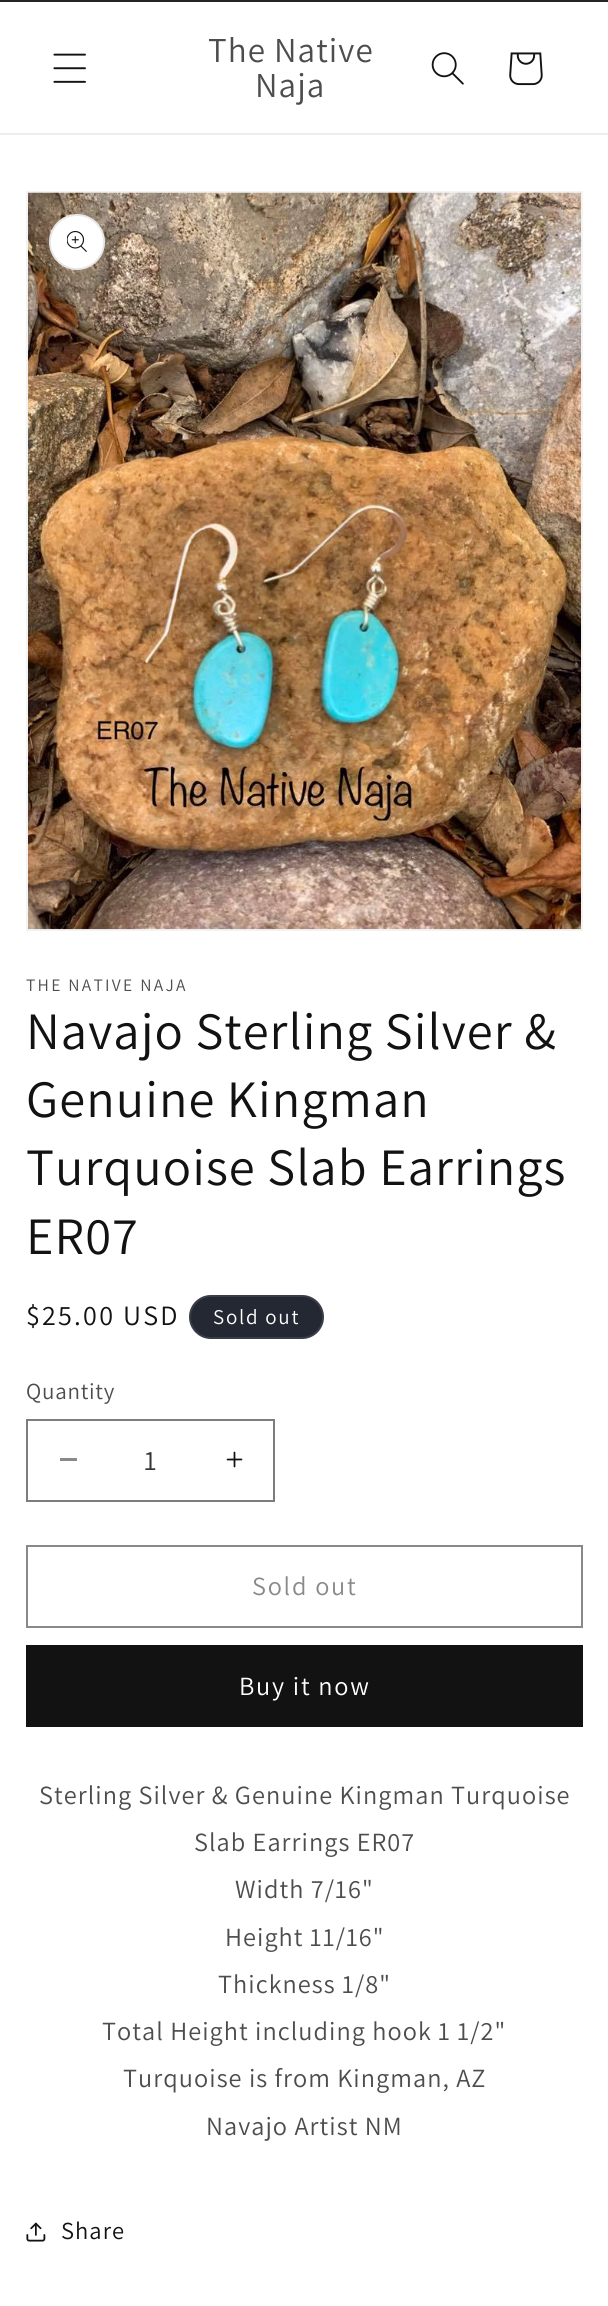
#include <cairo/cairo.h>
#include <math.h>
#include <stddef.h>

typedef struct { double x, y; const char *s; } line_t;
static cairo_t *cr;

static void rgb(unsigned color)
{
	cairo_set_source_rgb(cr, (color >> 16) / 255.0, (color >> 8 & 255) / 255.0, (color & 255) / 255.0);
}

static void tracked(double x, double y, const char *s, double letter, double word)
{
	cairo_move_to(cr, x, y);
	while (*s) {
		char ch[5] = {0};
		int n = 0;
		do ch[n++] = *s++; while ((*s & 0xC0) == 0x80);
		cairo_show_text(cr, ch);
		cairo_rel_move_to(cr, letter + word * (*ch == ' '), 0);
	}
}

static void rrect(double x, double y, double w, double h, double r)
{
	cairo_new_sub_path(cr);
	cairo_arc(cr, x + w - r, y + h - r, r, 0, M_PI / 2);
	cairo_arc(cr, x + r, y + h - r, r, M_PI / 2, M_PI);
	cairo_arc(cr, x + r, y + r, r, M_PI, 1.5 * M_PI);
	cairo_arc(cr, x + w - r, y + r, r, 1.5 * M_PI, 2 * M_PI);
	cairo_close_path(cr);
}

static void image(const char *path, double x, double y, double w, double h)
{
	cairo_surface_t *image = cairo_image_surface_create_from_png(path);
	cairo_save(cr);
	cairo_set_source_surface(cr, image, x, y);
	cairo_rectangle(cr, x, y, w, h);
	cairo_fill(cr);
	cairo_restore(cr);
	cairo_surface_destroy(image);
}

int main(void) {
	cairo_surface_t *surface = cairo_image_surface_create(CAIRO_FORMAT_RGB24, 608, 2306);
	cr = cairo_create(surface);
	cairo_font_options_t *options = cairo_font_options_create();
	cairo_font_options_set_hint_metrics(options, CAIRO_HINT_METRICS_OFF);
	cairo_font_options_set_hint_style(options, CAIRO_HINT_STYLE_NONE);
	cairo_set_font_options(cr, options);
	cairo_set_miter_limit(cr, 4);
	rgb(0xffffff);
	cairo_paint(cr);
	rgb(0x252525);
	cairo_rectangle(cr, 0, 0, 608, 2);
	cairo_fill(cr);
	rgb(0xececec);
	cairo_rectangle(cr, 0, 133, 608, 2);
	cairo_fill(cr);
	image("img/1.png", 53, 53, 33, 30);
	image("img/2.png", 431, 52, 33, 33);
	image("img/3.png", 509, 52, 34, 34);
	cairo_rectangle(cr, 27, 192, 555, 738);
	rgb(0xf3f3f3);
	cairo_stroke(cr);
	image("img/4.png", 28, 192, 553, 738);
	rgb(0xffffff);
	cairo_arc(cr, 77, 242, 28, 0, 2 * M_PI);
	cairo_fill(cr);
	cairo_arc(cr, 77, 242, 27, 0, 2 * M_PI);
	cairo_set_source_rgba(cr, 0.071, 0.071, 0.071, 0.1);
	cairo_stroke(cr);
	image("img/5.png", 67, 231, 20, 21);
	rgb(0x242833);
	rrect(189, 1295, 135, 44, 22);
	cairo_fill(cr);
	rrect(190, 1296, 133, 42, 21);
	cairo_set_source_rgba(cr, 1, 1, 1, 0.1);
	cairo_stroke(cr);
	rgb(0x898989);
	cairo_rectangle(cr, 60, 1458, 17, 3);
	cairo_fill(cr);
	image("img/6.png", 226, 1451, 17, 17);
	cairo_rectangle(cr, 27, 1420, 247, 81);
	rgb(0x7d7d7d);
	cairo_stroke(cr);
	cairo_rectangle(cr, 27, 1546, 555, 81);
	rgb(0x898989);
	cairo_stroke(cr);
	rgb(0x121212);
	cairo_rectangle(cr, 26, 1645, 557, 82);
	cairo_fill(cr);
	image("img/7.png", 26, 2222, 20, 20);
	cairo_select_font_face(cr, "Assistant", CAIRO_FONT_SLANT_NORMAL, CAIRO_FONT_WEIGHT_NORMAL);
	cairo_set_font_size(cr, 35);
	rgb(0x4d4d4d);
	tracked(208, 62, "The Native", 1.05, 0);
	tracked(255, 97, "Naja", 1.05, 0);
	cairo_set_font_size(cr, 17.5);
	tracked(26, 991, "THE NATIVE NAJA", 2.25, 0);
	cairo_set_font_size(cr, 52.5);
	rgb(0x121212);
	{
		static const line_t items[] = {
			{26, 1049, "Navajo Sterling Silver &"},
			{26, 1117, "Genuine Kingman"},
			{26, 1185, "Turquoise Slab Earrings"},
			{26, 1254, "ER07"},
		};
		for (size_t i = 0; i < sizeof items / sizeof *items; i++) {
			tracked(items[i].x, items[i].y, items[i].s, 1.05, 0);
		}
	}
	cairo_set_font_size(cr, 28);
	tracked(26, 1325, "$25.00 USD", 2.25, 0);
	cairo_set_font_size(cr, 21);
	rgb(0xffffff);
	tracked(213, 1324, "Sold out", 1.75, 0);
	cairo_set_font_size(cr, 23);
	rgb(0x4d4d4d);
	tracked(26, 1399, "Quantity", 0.75, 0);
	cairo_set_font_size(cr, 28);
	rgb(0x363636);
	cairo_move_to(cr, 144, 1470);
	cairo_show_text(cr, "1");
	cairo_set_font_size(cr, 26.25);
	rgb(0x898989);
	tracked(252, 1595, "Sold out", 1.75, 0);
	rgb(0xffffff);
	tracked(239, 1695, "Buy it now", 1.75, 0);
	rgb(0x4d4d4d);
	{
		static const line_t items[] = {
			{39, 1804, "Sterling Silver & Genuine Kingman Turquoise"},
			{194, 1851, "Slab Earrings ER07"},
			{235, 1898, "Width 7/16\""},
			{225, 1946, "Height 11/16\""},
			{218, 1993, "Thickness 1/8\""},
			{102, 2040, "Total Height including hook 1 1/2\""},
			{123, 2087, "Turquoise is from Kingman, AZ"},
			{206, 2135, "Navajo Artist NM"},
		};
		for (size_t i = 0; i < sizeof items / sizeof *items; i++) {
			tracked(items[i].x, items[i].y, items[i].s, 1.05, 0);
		}
	}
	cairo_set_font_size(cr, 24.5);
	rgb(0x121212);
	tracked(61, 2239, "Share", 1.05, 0);
	cairo_surface_write_to_png(surface, "page.png");
	cairo_font_options_destroy(options);
	cairo_destroy(cr);
	cairo_surface_destroy(surface);
	return 0;
}
